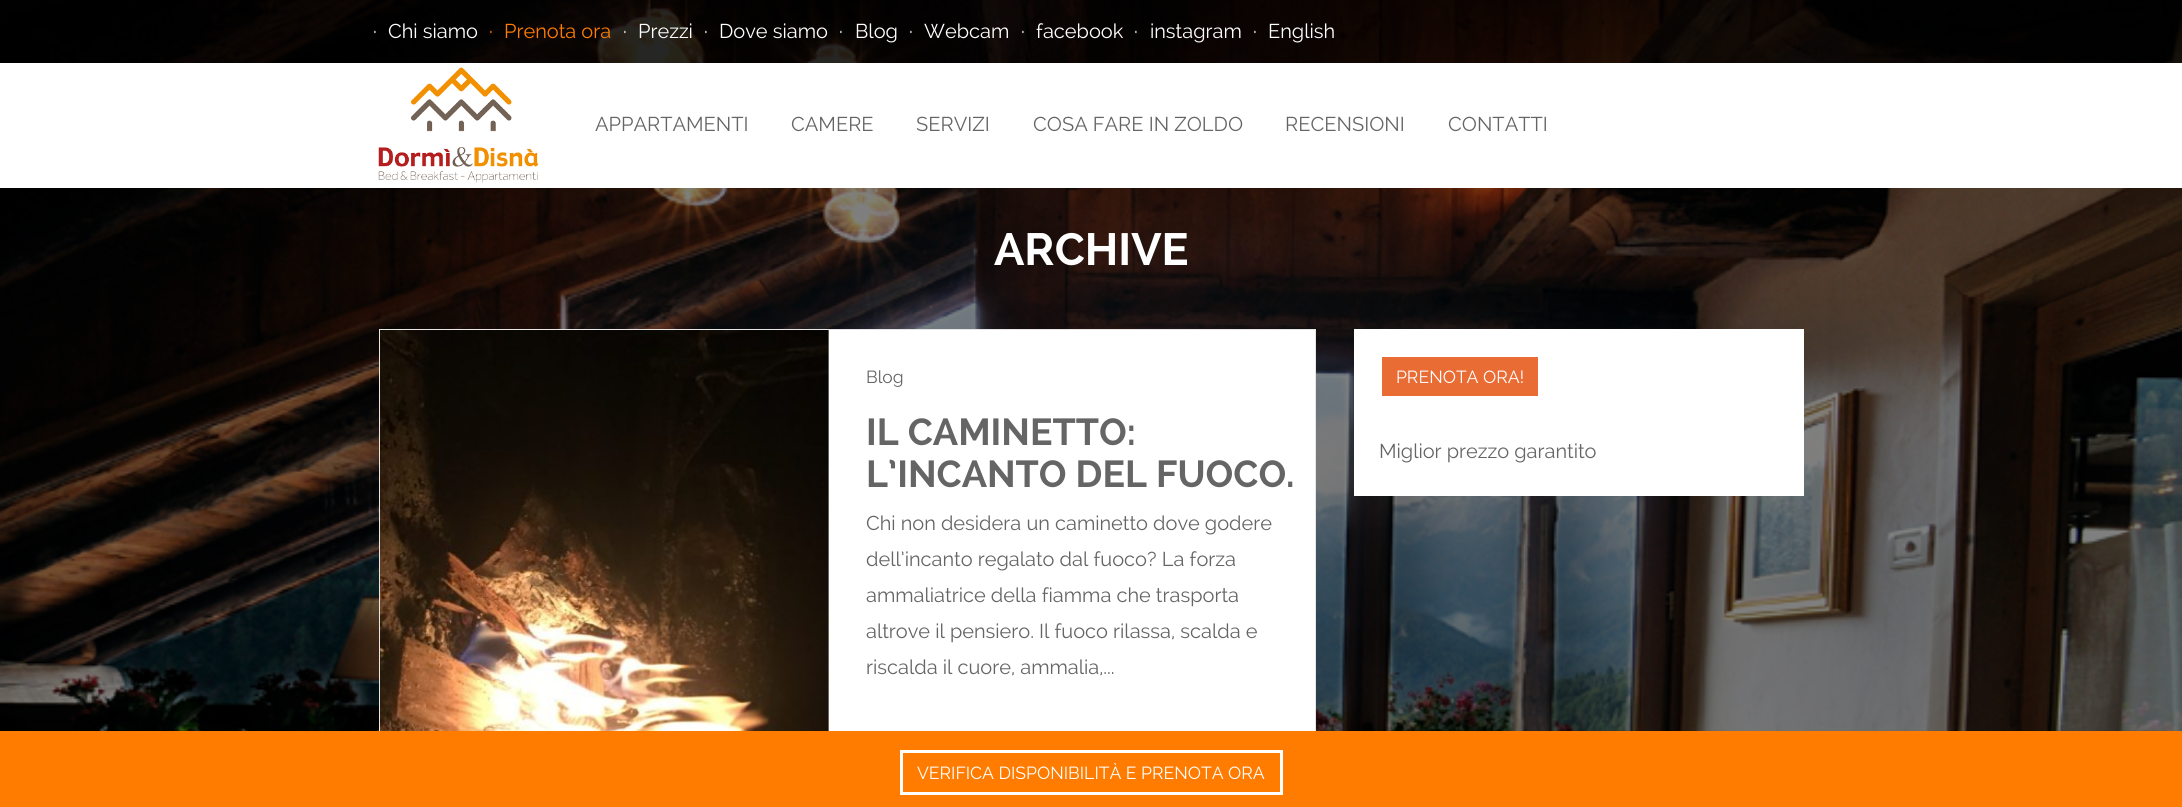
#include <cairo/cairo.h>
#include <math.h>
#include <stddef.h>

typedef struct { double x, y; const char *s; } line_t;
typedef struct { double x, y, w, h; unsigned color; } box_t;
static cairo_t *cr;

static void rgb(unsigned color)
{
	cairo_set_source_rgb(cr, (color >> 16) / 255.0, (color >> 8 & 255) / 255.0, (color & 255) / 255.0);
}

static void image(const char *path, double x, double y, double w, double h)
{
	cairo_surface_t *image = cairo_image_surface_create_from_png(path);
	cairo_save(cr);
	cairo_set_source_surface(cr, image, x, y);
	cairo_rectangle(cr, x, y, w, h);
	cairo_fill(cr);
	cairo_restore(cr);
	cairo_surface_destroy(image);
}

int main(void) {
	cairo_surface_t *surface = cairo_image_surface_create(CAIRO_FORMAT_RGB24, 2182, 807);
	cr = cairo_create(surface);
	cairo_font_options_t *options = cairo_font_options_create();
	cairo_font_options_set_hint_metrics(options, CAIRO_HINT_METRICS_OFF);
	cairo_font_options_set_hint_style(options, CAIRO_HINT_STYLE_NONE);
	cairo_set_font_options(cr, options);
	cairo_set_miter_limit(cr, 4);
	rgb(0x000000);
	cairo_paint(cr);
	image("img/2.png", 0, 0, 2182, 731);
	cairo_set_source_rgba(cr, 0, 0, 0, 0.7);
	cairo_rectangle(cr, 0, 0, 2182, 63);
	cairo_fill(cr);
	rgb(0xffffff);
	cairo_rectangle(cr, 0, 63, 2182, 125);
	cairo_fill(cr);
	image("img/1.png", 378, 67, 161, 116);
	cairo_rectangle(cr, 828, 330, 487, 401);
	cairo_fill(cr);
	cairo_rectangle(cr, 379.5, 329.5, 936, 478);
	rgb(0xe6e6e6);
	cairo_set_line_width(cr, 1);
	cairo_stroke(cr);
	image("img/3.png", 380, 330, 449, 401);
	{
		static const box_t items[] = {
			{1354, 329, 450, 167, 0xffffff},
			{1382, 357, 156, 39, 0xea6c35},
			{0, 731, 2182, 76, 0xff7c00},
		};
		for (size_t i = 0; i < sizeof items / sizeof *items; i++) {
			rgb(items[i].color);
			cairo_rectangle(cr, items[i].x, items[i].y, items[i].w, items[i].h);
			cairo_fill(cr);
		}
	}
	cairo_rectangle(cr, 901.5, 751.5, 380, 42);
	rgb(0xffffff);
	cairo_set_line_width(cr, 3);
	cairo_stroke(cr);
	cairo_select_font_face(cr, "Raleway", CAIRO_FONT_SLANT_NORMAL, CAIRO_FONT_WEIGHT_NORMAL);
	cairo_set_font_size(cr, 20);
	cairo_move_to(cr, 373, 38);
	cairo_show_text(cr, "·");
	cairo_move_to(cr, 388, 38);
	cairo_show_text(cr, "Chi siamo");
	rgb(0xff7c00);
	cairo_move_to(cr, 489, 38);
	cairo_show_text(cr, "·");
	cairo_move_to(cr, 504, 38);
	cairo_show_text(cr, "Prenota ora");
	rgb(0xffffff);
	{
		static const line_t items[] = {
			{623, 38, "·"},
			{638, 38, "Prezzi"},
			{704, 38, "·"},
			{719, 38, "Dove siamo"},
			{839, 38, "·"},
			{855, 38, "Blog"},
			{909, 38, "·"},
			{924, 38, "Webcam"},
			{1021, 38, "·"},
			{1036, 38, "facebook"},
			{1134, 38, "·"},
			{1150, 38, "instagram"},
			{1253, 38, "·"},
			{1268, 38, "English"},
		};
		for (size_t i = 0; i < sizeof items / sizeof *items; i++) {
			cairo_move_to(cr, items[i].x, items[i].y);
			cairo_show_text(cr, items[i].s);
		}
	}
	rgb(0x656565);
	{
		static const line_t items[] = {
			{595, 131, "APPARTAMENTI"},
			{791, 131, "CAMERE"},
			{916, 131, "SERVIZI"},
			{1033, 131, "COSA FARE IN ZOLDO"},
			{1285, 131, "RECENSIONI"},
			{1448, 131, "CONTATTI"},
		};
		for (size_t i = 0; i < sizeof items / sizeof *items; i++) {
			cairo_move_to(cr, items[i].x, items[i].y);
			cairo_show_text(cr, items[i].s);
		}
	}
	cairo_select_font_face(cr, "Raleway", CAIRO_FONT_SLANT_NORMAL, CAIRO_FONT_WEIGHT_BOLD);
	cairo_set_font_size(cr, 45);
	rgb(0xffffff);
	cairo_move_to(cr, 994, 265);
	cairo_show_text(cr, "ARCHIVE");
	cairo_select_font_face(cr, "Raleway", CAIRO_FONT_SLANT_NORMAL, CAIRO_FONT_WEIGHT_NORMAL);
	cairo_set_font_size(cr, 17.5);
	rgb(0x656565);
	cairo_move_to(cr, 866, 383);
	cairo_show_text(cr, "Blog");
	cairo_select_font_face(cr, "Raleway", CAIRO_FONT_SLANT_NORMAL, CAIRO_FONT_WEIGHT_BOLD);
	cairo_set_font_size(cr, 37.5);
	cairo_move_to(cr, 866, 445);
	cairo_show_text(cr, "IL CAMINETTO:");
	cairo_move_to(cr, 866, 487);
	cairo_show_text(cr, "L’INCANTO DEL FUOCO.");
	cairo_select_font_face(cr, "Raleway", CAIRO_FONT_SLANT_NORMAL, CAIRO_FONT_WEIGHT_NORMAL);
	cairo_set_font_size(cr, 20);
	{
		static const line_t items[] = {
			{866, 530, "Chi non desidera un caminetto dove godere"},
			{866, 566, "dell’incanto regalato dal fuoco? La forza"},
			{866, 602, "ammaliatrice della fiamma che trasporta"},
			{866, 638, "altrove il pensiero. Il fuoco rilassa, scalda e"},
			{866, 674, "riscalda il cuore, ammalia,..."},
		};
		for (size_t i = 0; i < sizeof items / sizeof *items; i++) {
			cairo_move_to(cr, items[i].x, items[i].y);
			cairo_show_text(cr, items[i].s);
		}
	}
	cairo_set_font_size(cr, 17.5);
	rgb(0xffffff);
	cairo_move_to(cr, 1396, 383);
	cairo_show_text(cr, "PRENOTA ORA!");
	cairo_set_font_size(cr, 20);
	rgb(0x656565);
	cairo_move_to(cr, 1379, 458);
	cairo_show_text(cr, "Miglior prezzo garantito");
	cairo_set_font_size(cr, 17.5);
	rgb(0xffffff);
	cairo_move_to(cr, 917, 779);
	cairo_show_text(cr, "VERIFICA DISPONIBILITÀ E PRENOTA ORA");
	cairo_surface_write_to_png(surface, "page.png");
	cairo_font_options_destroy(options);
	cairo_destroy(cr);
	cairo_surface_destroy(surface);
	return 0;
}
